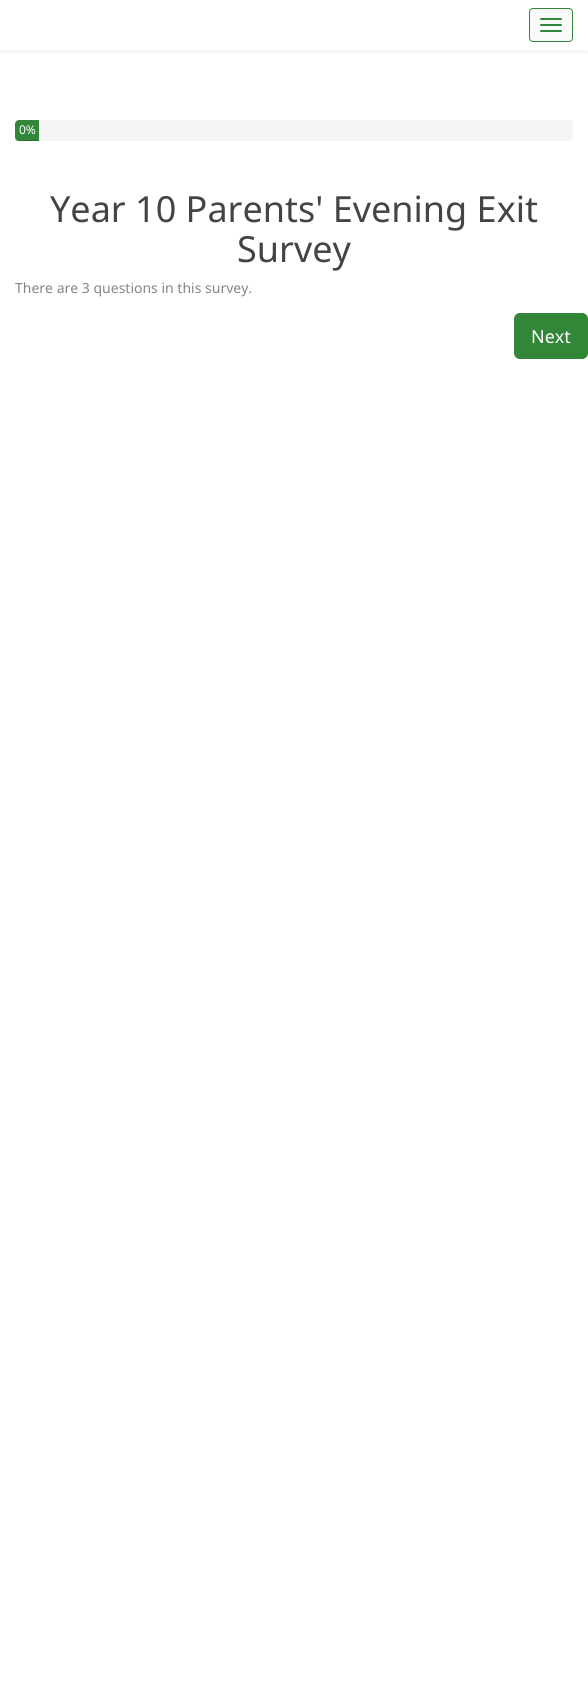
#include <cairo/cairo.h>
#include <math.h>
#include <stddef.h>

static cairo_t *cr;

static void rgb(unsigned color)
{
	cairo_set_source_rgb(cr, (color >> 16) / 255.0, (color >> 8 & 255) / 255.0, (color & 255) / 255.0);
}

static void rrect(double x, double y, double w, double h, double r)
{
	cairo_new_sub_path(cr);
	cairo_arc(cr, x + w - r, y + h - r, r, 0, M_PI / 2);
	cairo_arc(cr, x + r, y + h - r, r, M_PI / 2, M_PI);
	cairo_arc(cr, x + r, y + r, r, M_PI, 1.5 * M_PI);
	cairo_arc(cr, x + w - r, y + r, r, 1.5 * M_PI, 2 * M_PI);
	cairo_close_path(cr);
}

static void soft_shadow(double x, double y, double w, double h, double r, double blur, double alpha)
{
	cairo_push_group_with_content(cr, CAIRO_CONTENT_ALPHA);
	cairo_set_operator(cr, CAIRO_OPERATOR_SOURCE);
	for (int i = 15; i >= -15 && fmin(w, h) + blur * i / 3 > 0; i -= 2) {
		double e = blur * i / 6;
		cairo_set_source_rgba(cr, 0, 0, 0, alpha * erfc((i - 1) / 8.5) / 2);
		rrect(x - e, y - e, w + 2 * e, h + 2 * e, fmax(0, fmin(r + e + blur * .6, fmin(w, h) / 2 + e)));
		cairo_fill(cr);
	}
	cairo_pattern_t *soft = cairo_pop_group(cr);
	cairo_mask(cr, soft);
	cairo_pattern_destroy(soft);
}

int main(void) {
	cairo_surface_t *surface = cairo_image_surface_create(CAIRO_FORMAT_RGB24, 588, 1681);
	cr = cairo_create(surface);
	cairo_font_options_t *options = cairo_font_options_create();
	cairo_font_options_set_hint_metrics(options, CAIRO_HINT_METRICS_OFF);
	cairo_font_options_set_hint_style(options, CAIRO_HINT_STYLE_NONE);
	cairo_set_font_options(cr, options);
	cairo_set_miter_limit(cr, 4);
	rgb(0xffffff);
	cairo_paint(cr);
	cairo_save(cr);
	cairo_rectangle(cr, 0, 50, 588, 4);
	cairo_clip(cr);
	rgb(0x84888a);
	soft_shadow(0, 3, 588, 50, 0, 1.5, 0.1);
	cairo_restore(cr);
	rgb(0xfafafa);
	rrect(529.5, 8.5, 43, 33, 3.5);
	cairo_fill_preserve(cr);
	rgb(0x328637);
	cairo_set_line_width(cr, 1);
	cairo_stroke(cr);
	rrect(540, 18, 22, 2, 1);
	cairo_fill(cr);
	rrect(540, 24, 22, 2, 1);
	cairo_fill(cr);
	rrect(540, 30, 22, 2, 1);
	cairo_fill(cr);
	rgb(0xf5f5f5);
	rrect(15, 120, 558, 21, 4);
	cairo_fill(cr);
	rgb(0x328637);
	cairo_new_path(cr);
	cairo_move_to(cr, 19, 120);
	cairo_line_to(cr, 39, 120);
	cairo_line_to(cr, 39, 141);
	cairo_line_to(cr, 19, 141);
	cairo_curve_to(cr, 17, 141, 15, 139, 15, 137);
	cairo_line_to(cr, 15, 124);
	cairo_curve_to(cr, 15, 122, 17, 120, 19, 120);
	cairo_close_path(cr);
	cairo_fill(cr);
	cairo_set_source_rgba(cr, 0, 0, 0, 0.15);
	cairo_rectangle(cr, 15, 140, 24, 1);
	cairo_fill(cr);
	rgb(0x328637);
	rrect(514.5, 313.5, 73, 45, 5.5);
	cairo_fill_preserve(cr);
	cairo_stroke(cr);
	cairo_select_font_face(cr, "Noto Sans", CAIRO_FONT_SLANT_NORMAL, CAIRO_FONT_WEIGHT_NORMAL);
	cairo_set_font_size(cr, 12);
	rgb(0xffffff);
	cairo_move_to(cr, 19, 134);
	cairo_show_text(cr, "0%");
	cairo_set_font_size(cr, 36);
	rgb(0x444444);
	cairo_move_to(cr, 50, 222);
	cairo_show_text(cr, "Year 10 Parents' Evening Exit");
	cairo_move_to(cr, 237, 262);
	cairo_show_text(cr, "Survey");
	cairo_set_font_size(cr, 14);
	rgb(0x858585);
	cairo_move_to(cr, 15, 293);
	cairo_show_text(cr, "There are 3 questions in this survey.");
	cairo_set_font_size(cr, 18);
	rgb(0xffffff);
	cairo_move_to(cr, 531, 343);
	cairo_show_text(cr, "Next");
	cairo_surface_write_to_png(surface, "page.png");
	cairo_font_options_destroy(options);
	cairo_destroy(cr);
	cairo_surface_destroy(surface);
	return 0;
}
